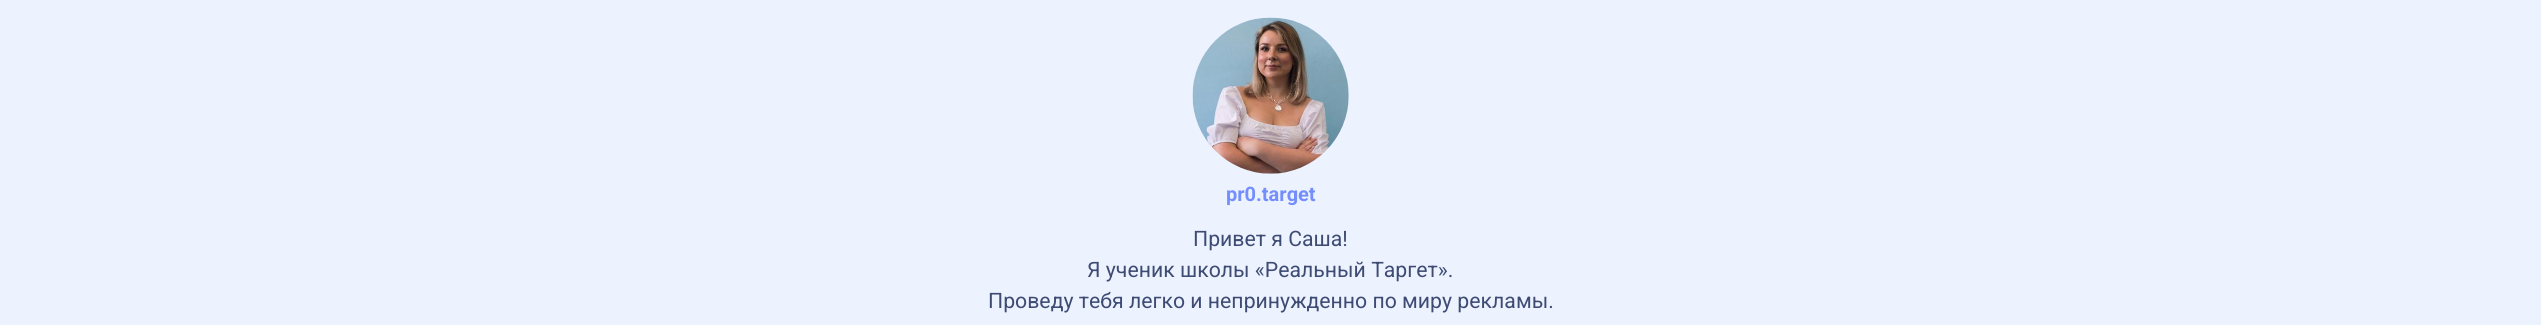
#include <cairo/cairo.h>
#include <math.h>
#include <stddef.h>

typedef struct { double x, y; const char *s; } line_t;
static cairo_t *cr;

static void rgb(unsigned color)
{
	cairo_set_source_rgb(cr, (color >> 16) / 255.0, (color >> 8 & 255) / 255.0, (color & 255) / 255.0);
}

static void image(const char *path, double x, double y, double w, double h)
{
	cairo_surface_t *image = cairo_image_surface_create_from_png(path);
	cairo_save(cr);
	cairo_set_source_surface(cr, image, x, y);
	cairo_rectangle(cr, x, y, w, h);
	cairo_fill(cr);
	cairo_restore(cr);
	cairo_surface_destroy(image);
}

int main(void) {
	cairo_surface_t *surface = cairo_image_surface_create(CAIRO_FORMAT_RGB24, 2541, 325);
	cr = cairo_create(surface);
	cairo_font_options_t *options = cairo_font_options_create();
	cairo_font_options_set_hint_metrics(options, CAIRO_HINT_METRICS_OFF);
	cairo_font_options_set_hint_style(options, CAIRO_HINT_STYLE_NONE);
	cairo_set_font_options(cr, options);
	cairo_set_miter_limit(cr, 4);
	rgb(0xedf2ff);
	cairo_paint(cr);
	image("img/1.png", 1192, 17, 157, 157);
	cairo_select_font_face(cr, "Roboto", CAIRO_FONT_SLANT_NORMAL, CAIRO_FONT_WEIGHT_BOLD);
	cairo_set_font_size(cr, 20);
	rgb(0x748ffc);
	cairo_move_to(cr, 1226, 201);
	cairo_show_text(cr, "pr0.target");
	cairo_select_font_face(cr, "Roboto", CAIRO_FONT_SLANT_NORMAL, CAIRO_FONT_WEIGHT_NORMAL);
	cairo_set_font_size(cr, 21.25);
	rgb(0x3e4c74);
	{
		static const line_t items[] = {
			{1193, 246, "Привет я Саша!"},
			{1087, 277, "Я ученик школы «Реальный Таргет»."},
			{988, 308, "Проведу тебя легко и непринужденно по миру рекламы."},
		};
		for (size_t i = 0; i < sizeof items / sizeof *items; i++) {
			cairo_move_to(cr, items[i].x, items[i].y);
			cairo_show_text(cr, items[i].s);
		}
	}
	cairo_surface_write_to_png(surface, "page.png");
	cairo_font_options_destroy(options);
	cairo_destroy(cr);
	cairo_surface_destroy(surface);
	return 0;
}
